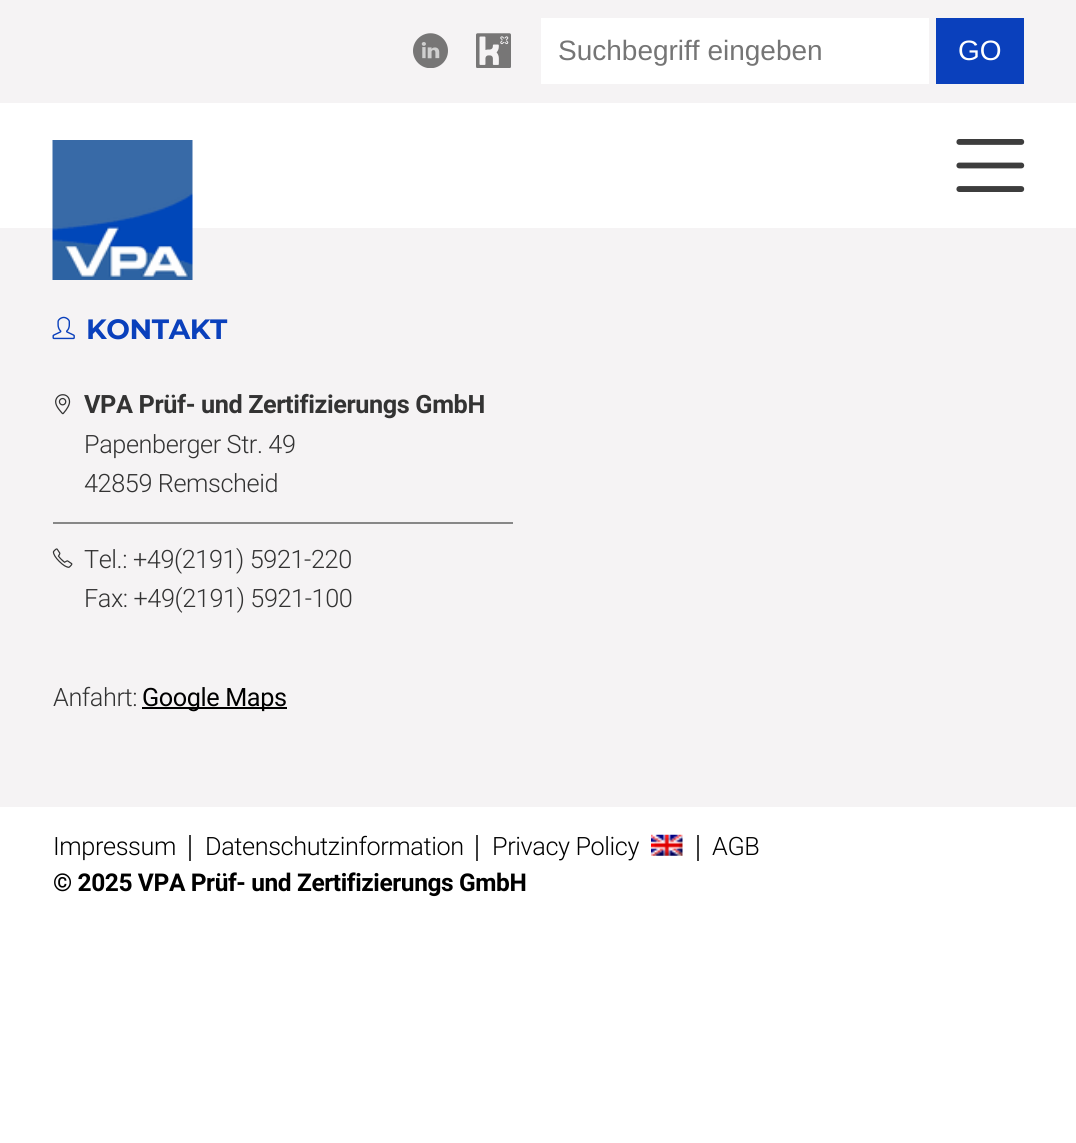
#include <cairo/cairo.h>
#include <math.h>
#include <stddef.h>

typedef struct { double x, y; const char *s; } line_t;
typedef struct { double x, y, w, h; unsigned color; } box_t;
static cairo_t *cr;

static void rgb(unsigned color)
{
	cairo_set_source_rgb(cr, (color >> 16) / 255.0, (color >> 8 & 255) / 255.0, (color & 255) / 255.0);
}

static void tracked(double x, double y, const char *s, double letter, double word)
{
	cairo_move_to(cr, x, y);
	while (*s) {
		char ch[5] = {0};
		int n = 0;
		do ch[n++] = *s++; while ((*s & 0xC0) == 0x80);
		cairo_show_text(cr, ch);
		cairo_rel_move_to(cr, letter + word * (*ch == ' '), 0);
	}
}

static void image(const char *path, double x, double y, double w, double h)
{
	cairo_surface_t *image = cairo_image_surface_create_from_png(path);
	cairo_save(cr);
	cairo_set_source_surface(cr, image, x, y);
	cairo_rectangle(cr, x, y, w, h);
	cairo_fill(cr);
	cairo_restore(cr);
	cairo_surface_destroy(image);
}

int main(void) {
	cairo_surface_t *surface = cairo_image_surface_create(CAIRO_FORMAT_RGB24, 1076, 1143);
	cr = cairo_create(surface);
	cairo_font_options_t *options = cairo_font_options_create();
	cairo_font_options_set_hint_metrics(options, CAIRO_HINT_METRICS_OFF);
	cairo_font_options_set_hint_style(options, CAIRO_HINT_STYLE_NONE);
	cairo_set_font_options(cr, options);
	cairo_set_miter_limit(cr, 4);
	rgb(0xffffff);
	cairo_paint(cr);
	rgb(0xf5f3f4);
	cairo_rectangle(cr, 0, 0, 1076, 103);
	cairo_fill(cr);
	image("img/1.png", 413, 33, 35, 35);
	image("img/2.png", 476, 33, 35, 35);
	{
		static const box_t items[] = {
			{541, 18, 388, 66, 0xffffff},
			{936, 18, 88, 66, 0x0a40bc},
			{0, 228, 1076, 579, 0xf5f3f4},
		};
		for (size_t i = 0; i < sizeof items / sizeof *items; i++) {
			rgb(items[i].color);
			cairo_rectangle(cr, items[i].x, items[i].y, items[i].w, items[i].h);
			cairo_fill(cr);
		}
	}
	image("img/3.png", 52, 140, 141, 140);
	image("img/4.png", 956, 139, 69, 53);
	image("img/5.png", 52, 316, 23, 24);
	rgb(0x878787);
	cairo_rectangle(cr, 53, 522, 460, 2);
	cairo_fill(cr);
	image("img/6.png", 55, 394, 16, 21);
	image("img/7.png", 52, 548, 21, 20);
	{
		static const box_t items[] = {
			{142, 707, 145, 2, 0x000000},
			{189, 835, 2, 26, 0x3d3d3d},
			{476, 835, 2, 26, 0x3d3d3d},
			{697, 835, 2, 26, 0x3d3d3d},
		};
		for (size_t i = 0; i < sizeof items / sizeof *items; i++) {
			rgb(items[i].color);
			cairo_rectangle(cr, items[i].x, items[i].y, items[i].w, items[i].h);
			cairo_fill(cr);
		}
	}
	image("img/8.png", 651, 834, 32, 22);
	cairo_select_font_face(cr, "Liberation Sans", CAIRO_FONT_SLANT_NORMAL, CAIRO_FONT_WEIGHT_NORMAL);
	cairo_set_font_size(cr, 28);
	rgb(0x757575);
	cairo_move_to(cr, 558, 60);
	cairo_show_text(cr, "Suchbegriff eingeben");
	rgb(0xffffff);
	cairo_move_to(cr, 958, 60);
	cairo_show_text(cr, "GO");
	cairo_select_font_face(cr, "Montserrat", CAIRO_FONT_SLANT_NORMAL, CAIRO_FONT_WEIGHT_BOLD);
	rgb(0x0a40bc);
	tracked(86, 339, "KONTAKT", -0.4, 0);
	cairo_select_font_face(cr, "Roboto", CAIRO_FONT_SLANT_NORMAL, CAIRO_FONT_WEIGHT_BOLD);
	cairo_set_font_size(cr, 25.25);
	rgb(0x333333);
	tracked(84, 413, "VPA Prüf- und Zertifizierungs GmbH", -0.4, 0);
	cairo_select_font_face(cr, "Roboto Light", CAIRO_FONT_SLANT_NORMAL, CAIRO_FONT_WEIGHT_NORMAL);
	{
		static const line_t items[] = {
			{84, 453, "Papenberger Str. 49"},
			{84, 492, "42859 Remscheid"},
			{84, 568, "Tel.: +49(2191) 5921-220"},
			{84, 607, "Fax: +49(2191) 5921-100"},
			{53, 706, "Anfahrt:"},
		};
		for (size_t i = 0; i < sizeof items / sizeof *items; i++) {
			tracked(items[i].x, items[i].y, items[i].s, -0.4, 0);
		}
	}
	cairo_select_font_face(cr, "Roboto", CAIRO_FONT_SLANT_NORMAL, CAIRO_FONT_WEIGHT_NORMAL);
	rgb(0x000000);
	tracked(142, 706, "Google Maps", -0.4, 0);
	cairo_select_font_face(cr, "Roboto Light", CAIRO_FONT_SLANT_NORMAL, CAIRO_FONT_WEIGHT_NORMAL);
	{
		static const line_t items[] = {
			{53, 855, "Impressum"},
			{205, 855, "Datenschutzinformation"},
			{492, 855, "Privacy Policy"},
			{712, 855, "AGB"},
		};
		for (size_t i = 0; i < sizeof items / sizeof *items; i++) {
			tracked(items[i].x, items[i].y, items[i].s, -0.4, 0);
		}
	}
	cairo_select_font_face(cr, "Roboto", CAIRO_FONT_SLANT_NORMAL, CAIRO_FONT_WEIGHT_BOLD);
	cairo_set_font_size(cr, 24.5);
	tracked(53, 891, "© 2025 VPA Prüf- und Zertifizierungs GmbH", -0.4, 0);
	cairo_surface_write_to_png(surface, "page.png");
	cairo_font_options_destroy(options);
	cairo_destroy(cr);
	cairo_surface_destroy(surface);
	return 0;
}
